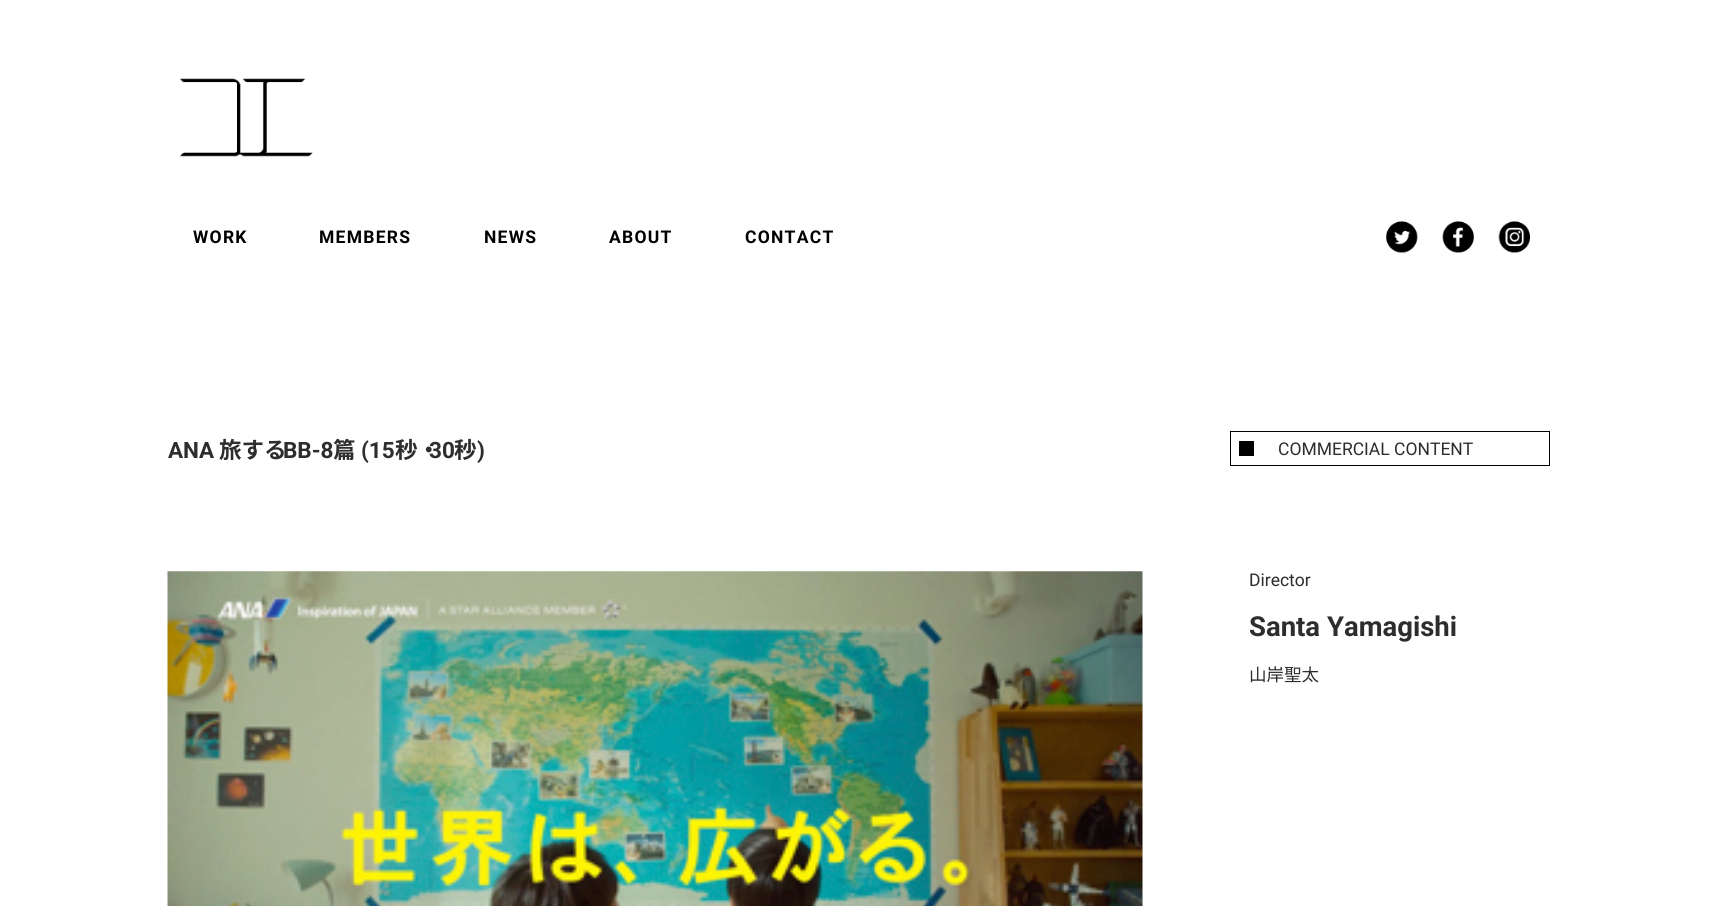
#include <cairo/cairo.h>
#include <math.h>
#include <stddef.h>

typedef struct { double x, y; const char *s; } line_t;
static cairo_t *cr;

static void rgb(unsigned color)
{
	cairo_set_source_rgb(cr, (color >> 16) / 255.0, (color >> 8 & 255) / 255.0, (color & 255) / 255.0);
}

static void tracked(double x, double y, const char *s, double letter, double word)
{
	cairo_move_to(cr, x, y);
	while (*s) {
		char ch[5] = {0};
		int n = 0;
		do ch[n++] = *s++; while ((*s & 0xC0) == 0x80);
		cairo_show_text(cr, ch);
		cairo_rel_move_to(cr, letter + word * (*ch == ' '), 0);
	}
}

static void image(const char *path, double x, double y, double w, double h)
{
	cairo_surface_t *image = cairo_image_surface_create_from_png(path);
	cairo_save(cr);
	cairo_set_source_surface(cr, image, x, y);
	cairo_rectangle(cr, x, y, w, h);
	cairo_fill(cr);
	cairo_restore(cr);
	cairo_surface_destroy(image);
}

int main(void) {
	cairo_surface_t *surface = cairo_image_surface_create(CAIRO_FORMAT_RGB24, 1717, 906);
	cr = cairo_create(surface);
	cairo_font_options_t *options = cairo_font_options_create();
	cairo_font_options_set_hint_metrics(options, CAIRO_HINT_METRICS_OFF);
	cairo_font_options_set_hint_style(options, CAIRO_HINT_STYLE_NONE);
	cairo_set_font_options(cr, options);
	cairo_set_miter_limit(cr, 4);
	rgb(0xffffff);
	cairo_paint(cr);
	image("img/1.png", 180, 78, 133, 79);
	image("img/2.png", 1386, 221, 32, 32);
	image("img/3.png", 1442, 221, 32, 32);
	image("img/4.png", 1498, 221, 32, 32);
	cairo_rectangle(cr, 1230.5, 431.5, 319, 34);
	rgb(0x000000);
	cairo_set_line_width(cr, 1);
	cairo_stroke(cr);
	cairo_rectangle(cr, 1239, 441, 15, 15);
	cairo_fill(cr);
	image("img/5.png", 167, 571, 976, 335);
	cairo_select_font_face(cr, "Roboto", CAIRO_FONT_SLANT_NORMAL, CAIRO_FONT_WEIGHT_BOLD);
	cairo_set_font_size(cr, 17.5);
	{
		static const line_t items[] = {
			{193, 243, "WORK"},
			{319, 243, "MEMBERS"},
			{484, 243, "NEWS"},
			{609, 243, "ABOUT"},
			{745, 243, "CONTACT"},
		};
		for (size_t i = 0; i < sizeof items / sizeof *items; i++) {
			tracked(items[i].x, items[i].y, items[i].s, 1.25, 0);
		}
	}
	cairo_set_font_size(cr, 22.5);
	rgb(0x2d2d2d);
	cairo_move_to(cr, 168, 458);
	cairo_show_text(cr, "ANA");
	cairo_select_font_face(cr, "Noto Sans JP", CAIRO_FONT_SLANT_NORMAL, CAIRO_FONT_WEIGHT_BOLD);
	cairo_move_to(cr, 219, 458);
	cairo_show_text(cr, "旅する");
	cairo_select_font_face(cr, "Roboto", CAIRO_FONT_SLANT_NORMAL, CAIRO_FONT_WEIGHT_BOLD);
	cairo_move_to(cr, 283, 458);
	cairo_show_text(cr, "BB-8");
	cairo_select_font_face(cr, "Noto Sans JP", CAIRO_FONT_SLANT_NORMAL, CAIRO_FONT_WEIGHT_BOLD);
	cairo_move_to(cr, 333, 458);
	cairo_show_text(cr, "篇");
	cairo_select_font_face(cr, "Roboto", CAIRO_FONT_SLANT_NORMAL, CAIRO_FONT_WEIGHT_BOLD);
	cairo_move_to(cr, 361, 458);
	cairo_show_text(cr, "(15");
	cairo_select_font_face(cr, "Noto Sans JP", CAIRO_FONT_SLANT_NORMAL, CAIRO_FONT_WEIGHT_BOLD);
	cairo_move_to(cr, 395, 458);
	cairo_show_text(cr, "秒・");
	cairo_select_font_face(cr, "Roboto", CAIRO_FONT_SLANT_NORMAL, CAIRO_FONT_WEIGHT_BOLD);
	cairo_move_to(cr, 429, 458);
	cairo_show_text(cr, "30");
	cairo_select_font_face(cr, "Noto Sans JP", CAIRO_FONT_SLANT_NORMAL, CAIRO_FONT_WEIGHT_BOLD);
	cairo_move_to(cr, 454, 458);
	cairo_show_text(cr, "秒");
	cairo_select_font_face(cr, "Roboto", CAIRO_FONT_SLANT_NORMAL, CAIRO_FONT_WEIGHT_BOLD);
	cairo_move_to(cr, 477, 458);
	cairo_show_text(cr, ")");
	cairo_select_font_face(cr, "Roboto", CAIRO_FONT_SLANT_NORMAL, CAIRO_FONT_WEIGHT_NORMAL);
	cairo_set_font_size(cr, 17.5);
	cairo_move_to(cr, 1278, 455);
	cairo_show_text(cr, "COMMERCIAL CONTENT");
	cairo_move_to(cr, 1249, 586);
	cairo_show_text(cr, "Director");
	cairo_select_font_face(cr, "Roboto", CAIRO_FONT_SLANT_NORMAL, CAIRO_FONT_WEIGHT_BOLD);
	cairo_set_font_size(cr, 27.5);
	cairo_move_to(cr, 1249, 636);
	cairo_show_text(cr, "Santa Yamagishi");
	cairo_select_font_face(cr, "Noto Sans JP", CAIRO_FONT_SLANT_NORMAL, CAIRO_FONT_WEIGHT_NORMAL);
	cairo_set_font_size(cr, 17.5);
	cairo_move_to(cr, 1249, 681);
	cairo_show_text(cr, "山岸聖太");
	cairo_surface_write_to_png(surface, "page.png");
	cairo_font_options_destroy(options);
	cairo_destroy(cr);
	cairo_surface_destroy(surface);
	return 0;
}
